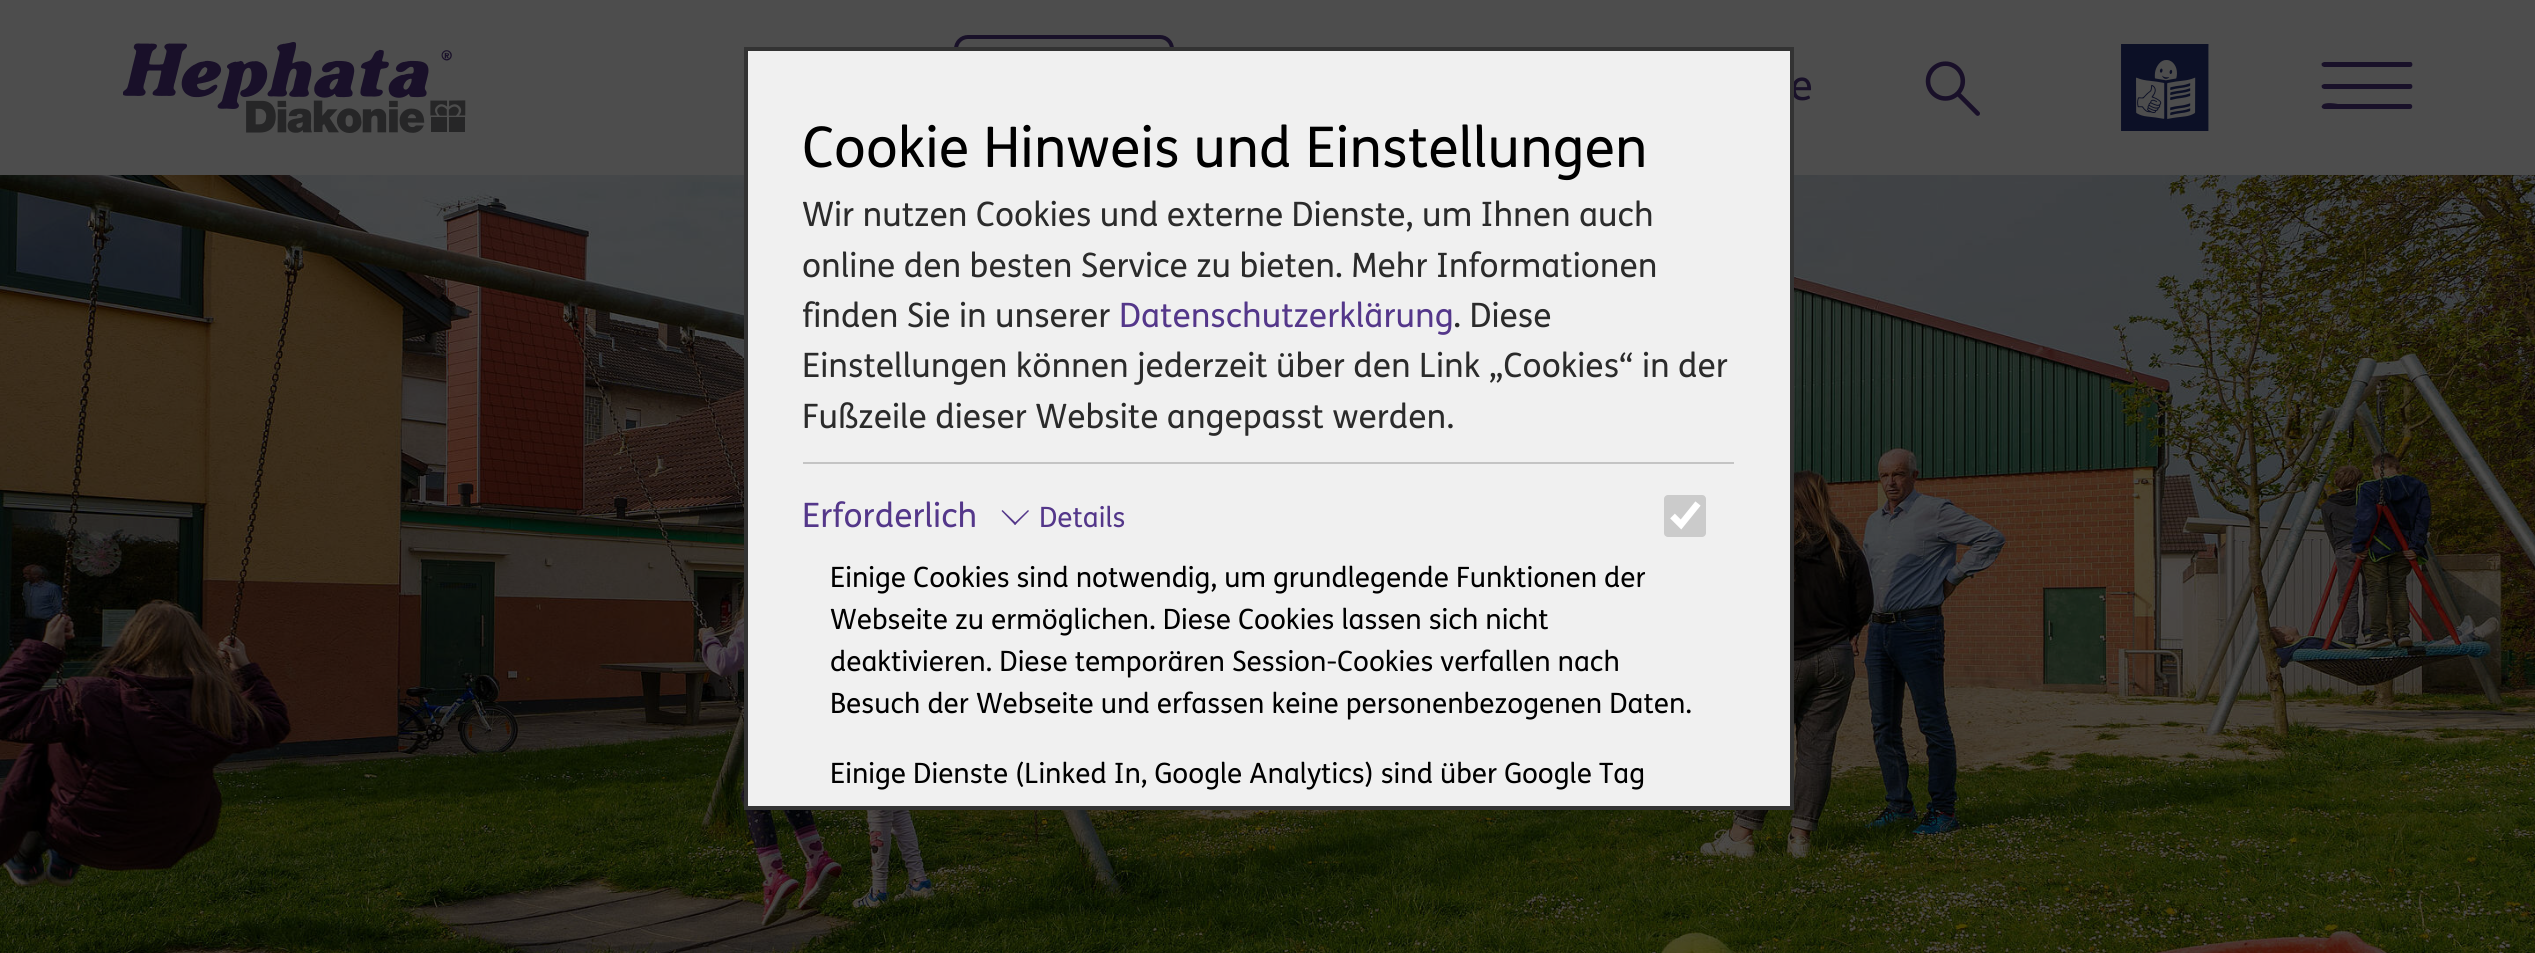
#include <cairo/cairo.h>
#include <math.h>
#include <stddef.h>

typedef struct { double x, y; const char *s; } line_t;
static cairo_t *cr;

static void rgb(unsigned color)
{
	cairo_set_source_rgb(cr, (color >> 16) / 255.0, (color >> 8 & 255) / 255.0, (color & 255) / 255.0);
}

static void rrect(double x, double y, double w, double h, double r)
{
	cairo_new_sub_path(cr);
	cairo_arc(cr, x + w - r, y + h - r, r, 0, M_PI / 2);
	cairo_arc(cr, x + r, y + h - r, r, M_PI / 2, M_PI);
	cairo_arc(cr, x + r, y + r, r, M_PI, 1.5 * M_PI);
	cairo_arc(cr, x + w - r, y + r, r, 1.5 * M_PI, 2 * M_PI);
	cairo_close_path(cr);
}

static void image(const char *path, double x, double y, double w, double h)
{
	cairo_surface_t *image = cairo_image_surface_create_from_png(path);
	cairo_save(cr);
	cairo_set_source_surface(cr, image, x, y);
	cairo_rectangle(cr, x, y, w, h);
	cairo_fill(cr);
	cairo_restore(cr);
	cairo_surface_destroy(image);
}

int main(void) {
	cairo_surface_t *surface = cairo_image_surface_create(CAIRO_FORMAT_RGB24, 2535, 953);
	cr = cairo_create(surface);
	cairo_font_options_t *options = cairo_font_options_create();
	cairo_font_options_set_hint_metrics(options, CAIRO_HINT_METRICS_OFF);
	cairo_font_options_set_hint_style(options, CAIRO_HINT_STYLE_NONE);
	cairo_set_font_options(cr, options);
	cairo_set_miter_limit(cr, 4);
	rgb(0x4d4d4d);
	cairo_paint(cr);
	image("img/1.png", 123, 42, 343, 91);
	rrect(956, 37, 216, 101, 12);
	rgb(0x191129);
	cairo_set_line_width(cr, 4);
	cairo_stroke(cr);
	image("img/2.png", 1925, 61, 55, 55);
	image("img/3.png", 2121, 44, 88, 87);
	cairo_new_path(cr);
	cairo_move_to(cr, 2410, 67);
	cairo_line_to(cr, 2324, 67);
	cairo_line_to(cr, 2322, 66);
	cairo_curve_to(cr, 2322, 66, 2321, 64, 2322, 63);
	cairo_line_to(cr, 2324, 62);
	cairo_line_to(cr, 2411, 62);
	cairo_curve_to(cr, 2413, 63, 2413, 67, 2410, 67);
	cairo_close_path(cr);
	cairo_move_to(cr, 2410, 89);
	cairo_line_to(cr, 2324, 89);
	cairo_line_to(cr, 2322, 88);
	cairo_curve_to(cr, 2322, 87, 2321, 86, 2322, 85);
	cairo_line_to(cr, 2324, 84);
	cairo_line_to(cr, 2411, 84);
	cairo_curve_to(cr, 2413, 85, 2413, 89, 2410, 89);
	cairo_close_path(cr);
	cairo_move_to(cr, 2410, 109);
	cairo_line_to(cr, 2324, 109);
	cairo_line_to(cr, 2322, 108);
	cairo_curve_to(cr, 2322, 107, 2321, 106, 2322, 106);
	cairo_curve_to(cr, 2323, 101, 2338, 104, 2338, 104);
	cairo_line_to(cr, 2410, 104);
	cairo_curve_to(cr, 2413, 104, 2413, 109, 2410, 109);
	cairo_close_path(cr);
	cairo_fill(cr);
	image("img/4.png", 0, 175, 2535, 778);
	cairo_select_font_face(cr, "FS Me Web", CAIRO_FONT_SLANT_NORMAL, CAIRO_FONT_WEIGHT_NORMAL);
	cairo_set_font_size(cr, 42);
	cairo_move_to(cr, 1790, 100);
	cairo_show_text(cr, "e");
	rgb(0xf0f0f0);
	cairo_rectangle(cr, 746, 49, 1046, 759);
	cairo_fill_preserve(cr);
	rgb(0x333333);
	cairo_stroke(cr);
	cairo_set_font_size(cr, 56);
	rgb(0x000000);
	cairo_move_to(cr, 802, 167);
	cairo_show_text(cr, "Cookie Hinweis und Einstellungen");
	cairo_set_font_size(cr, 33.6);
	rgb(0x2b2b2b);
	{
		static const line_t items[] = {
			{802, 226, "Wir nutzen Cookies und externe Dienste, um Ihnen auch"},
			{802, 277, "online den besten Service zu bieten. Mehr Informationen"},
			{802, 327, "finden Sie in unserer"},
		};
		for (size_t i = 0; i < sizeof items / sizeof *items; i++) {
			cairo_move_to(cr, items[i].x, items[i].y);
			cairo_show_text(cr, items[i].s);
		}
	}
	rgb(0x54378a);
	cairo_move_to(cr, 1119, 327);
	cairo_show_text(cr, "Datenschutzerklärung");
	rgb(0x2b2b2b);
	{
		static const line_t items[] = {
			{1453, 327, ". Diese"},
			{802, 377, "Einstellungen können jederzeit über den Link „Cookies“ in der"},
			{802, 428, "Fußzeile dieser Website angepasst werden."},
		};
		for (size_t i = 0; i < sizeof items / sizeof *items; i++) {
			cairo_move_to(cr, items[i].x, items[i].y);
			cairo_show_text(cr, items[i].s);
		}
	}
	rgb(0xc4c4c4);
	cairo_rectangle(cr, 803, 462, 931, 2);
	cairo_fill(cr);
	rgb(0x54378a);
	cairo_move_to(cr, 802, 527);
	cairo_show_text(cr, "Erforderlich");
	cairo_new_path(cr);
	cairo_move_to(cr, 1015, 525);
	cairo_line_to(cr, 1001.5, 511);
	cairo_line_to(cr, 1002.5, 510);
	cairo_line_to(cr, 1016.5, 523.5);
	cairo_close_path(cr);
	cairo_fill(cr);
	cairo_new_path(cr);
	cairo_move_to(cr, 1015, 525);
	cairo_line_to(cr, 1014, 523.5);
	cairo_line_to(cr, 1028, 510);
	cairo_line_to(cr, 1029, 511);
	cairo_close_path(cr);
	cairo_fill(cr);
	cairo_set_font_size(cr, 28);
	cairo_move_to(cr, 1039, 527);
	cairo_show_text(cr, "Details");
	rgb(0xcbcbcb);
	rrect(1664, 495, 42, 42, 4);
	cairo_fill(cr);
	cairo_new_path(cr);
	cairo_move_to(cr, 1672.5, 516);
	cairo_line_to(cr, 1681, 524.5);
	cairo_line_to(cr, 1698, 503.5);
	rgb(0xffffff);
	cairo_set_line_width(cr, 6.7);
	cairo_stroke(cr);
	rgb(0x000000);
	{
		static const line_t items[] = {
			{830, 587, "Einige Cookies sind notwendig, um grundlegende Funktionen der"},
			{830, 629, "Webseite zu ermöglichen. Diese Cookies lassen sich nicht"},
			{830, 671, "deaktivieren. Diese temporären Session-Cookies verfallen nach"},
			{830, 713, "Besuch der Webseite und erfassen keine personenbezogenen Daten."},
			{830, 783, "Einige Dienste (Linked In, Google Analytics) sind über Google Tag"},
		};
		for (size_t i = 0; i < sizeof items / sizeof *items; i++) {
			cairo_move_to(cr, items[i].x, items[i].y);
			cairo_show_text(cr, items[i].s);
		}
	}
	cairo_surface_write_to_png(surface, "page.png");
	cairo_font_options_destroy(options);
	cairo_destroy(cr);
	cairo_surface_destroy(surface);
	return 0;
}
